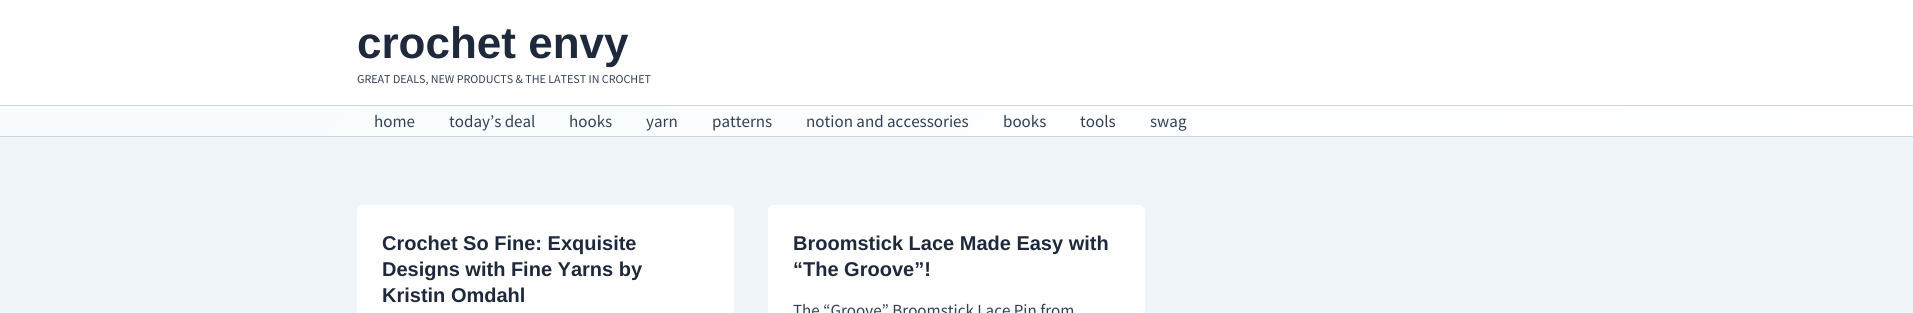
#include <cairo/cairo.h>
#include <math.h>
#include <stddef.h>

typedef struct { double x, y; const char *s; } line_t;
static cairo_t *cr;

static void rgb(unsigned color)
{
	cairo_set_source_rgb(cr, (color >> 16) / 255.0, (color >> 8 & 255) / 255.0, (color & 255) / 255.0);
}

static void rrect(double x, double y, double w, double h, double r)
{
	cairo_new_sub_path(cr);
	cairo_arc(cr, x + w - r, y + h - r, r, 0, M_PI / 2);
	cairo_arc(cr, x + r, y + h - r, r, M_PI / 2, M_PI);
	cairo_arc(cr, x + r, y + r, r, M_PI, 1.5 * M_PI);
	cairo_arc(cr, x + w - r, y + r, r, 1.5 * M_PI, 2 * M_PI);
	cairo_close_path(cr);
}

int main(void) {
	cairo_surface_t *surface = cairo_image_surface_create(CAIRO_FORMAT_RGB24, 1913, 313);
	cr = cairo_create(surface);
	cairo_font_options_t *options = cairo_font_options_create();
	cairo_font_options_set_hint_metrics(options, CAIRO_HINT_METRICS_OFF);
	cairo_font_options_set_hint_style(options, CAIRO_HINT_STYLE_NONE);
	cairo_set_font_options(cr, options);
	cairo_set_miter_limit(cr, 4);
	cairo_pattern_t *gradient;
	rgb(0xf0f5fa);
	cairo_paint(cr);
	rgb(0xffffff);
	cairo_rectangle(cr, 0, 0, 1913, 105);
	cairo_fill(cr);
	rgb(0xd1d5db);
	cairo_rectangle(cr, 0, 105, 1913, 1);
	cairo_fill(cr);
	gradient = cairo_pattern_create_linear(471, -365, 1442, 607);
	cairo_pattern_add_color_stop_rgba(gradient, 0, 0.973, 0.988, 0.996, 1);
	cairo_pattern_add_color_stop_rgba(gradient, 1, 1, 1, 1, 1);
	cairo_set_source(cr, gradient);
	cairo_pattern_destroy(gradient);
	cairo_rectangle(cr, 0, 106, 1913, 30);
	cairo_fill(cr);
	rgb(0xd1d5db);
	cairo_rectangle(cr, 0, 136, 1913, 1);
	cairo_fill(cr);
	rgb(0xffffff);
	rrect(357, 205, 377, 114, 6);
	cairo_fill(cr);
	rrect(768, 205, 377, 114, 6);
	cairo_fill(cr);
	cairo_select_font_face(cr, "Liberation Sans", CAIRO_FONT_SLANT_NORMAL, CAIRO_FONT_WEIGHT_BOLD);
	cairo_set_font_size(cr, 44);
	rgb(0x1e293b);
	cairo_move_to(cr, 357, 58);
	cairo_show_text(cr, "crochet envy");
	cairo_select_font_face(cr, "Source Sans Pro", CAIRO_FONT_SLANT_NORMAL, CAIRO_FONT_WEIGHT_NORMAL);
	cairo_set_font_size(cr, 12);
	rgb(0x334155);
	cairo_move_to(cr, 357, 83);
	cairo_show_text(cr, "GREAT DEALS, NEW PRODUCTS & THE LATEST IN CROCHET");
	cairo_set_font_size(cr, 17);
	{
		static const line_t items[] = {
			{374, 127, "home"},
			{449, 127, "today’s deal"},
			{569, 127, "hooks"},
			{646, 127, "yarn"},
			{712, 127, "patterns"},
			{806, 127, "notion and accessories"},
			{1003, 127, "books"},
			{1080, 127, "tools"},
			{1150, 127, "swag"},
		};
		for (size_t i = 0; i < sizeof items / sizeof *items; i++) {
			cairo_move_to(cr, items[i].x, items[i].y);
			cairo_show_text(cr, items[i].s);
		}
	}
	cairo_select_font_face(cr, "Liberation Sans", CAIRO_FONT_SLANT_NORMAL, CAIRO_FONT_WEIGHT_BOLD);
	cairo_set_font_size(cr, 20);
	rgb(0x1e293b);
	{
		static const line_t items[] = {
			{382, 250, "Crochet So Fine: Exquisite"},
			{382, 276, "Designs with Fine Yarns by"},
			{382, 302, "Kristin Omdahl"},
			{793, 250, "Broomstick Lace Made Easy with"},
			{793, 276, "“The Groove”!"},
		};
		for (size_t i = 0; i < sizeof items / sizeof *items; i++) {
			cairo_move_to(cr, items[i].x, items[i].y);
			cairo_show_text(cr, items[i].s);
		}
	}
	cairo_select_font_face(cr, "Source Sans Pro", CAIRO_FONT_SLANT_NORMAL, CAIRO_FONT_WEIGHT_NORMAL);
	cairo_set_font_size(cr, 17);
	rgb(0x334155);
	cairo_move_to(cr, 793, 316);
	cairo_show_text(cr, "The “Groove” Broomstick Lace Pin from");
	cairo_surface_write_to_png(surface, "page.png");
	cairo_font_options_destroy(options);
	cairo_destroy(cr);
	cairo_surface_destroy(surface);
	return 0;
}
